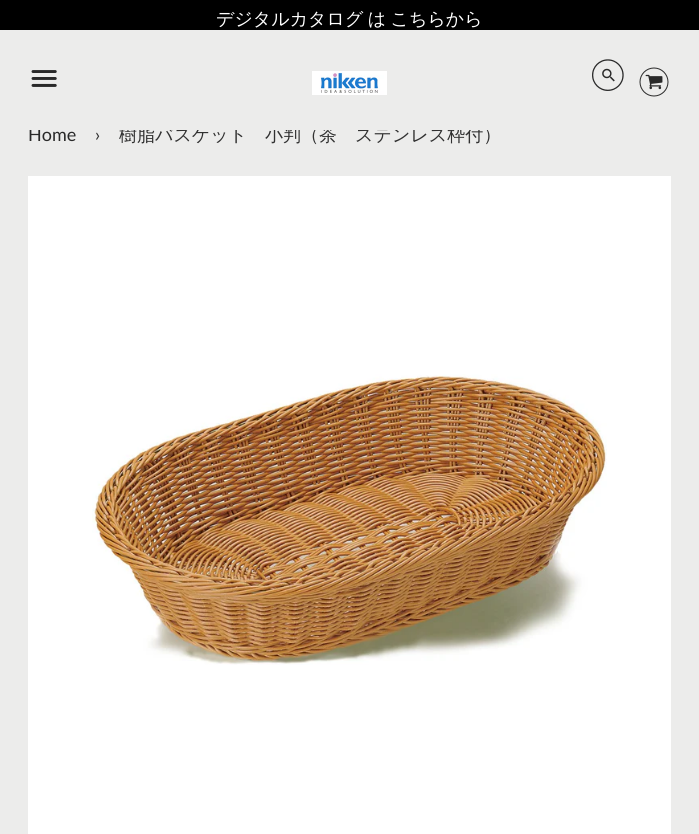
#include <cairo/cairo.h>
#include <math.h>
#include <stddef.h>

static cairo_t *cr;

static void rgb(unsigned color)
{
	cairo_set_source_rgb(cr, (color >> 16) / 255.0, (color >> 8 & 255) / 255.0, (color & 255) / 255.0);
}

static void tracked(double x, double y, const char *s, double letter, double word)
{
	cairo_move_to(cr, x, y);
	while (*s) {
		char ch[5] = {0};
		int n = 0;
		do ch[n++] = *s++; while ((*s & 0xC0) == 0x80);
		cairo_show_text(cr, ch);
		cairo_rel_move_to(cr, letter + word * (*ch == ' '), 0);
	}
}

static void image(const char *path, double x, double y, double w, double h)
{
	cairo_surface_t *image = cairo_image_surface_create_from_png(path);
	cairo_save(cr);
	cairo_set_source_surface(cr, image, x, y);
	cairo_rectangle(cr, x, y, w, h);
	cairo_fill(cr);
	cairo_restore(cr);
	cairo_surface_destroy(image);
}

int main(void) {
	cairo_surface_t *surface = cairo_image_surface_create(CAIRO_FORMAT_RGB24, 699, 834);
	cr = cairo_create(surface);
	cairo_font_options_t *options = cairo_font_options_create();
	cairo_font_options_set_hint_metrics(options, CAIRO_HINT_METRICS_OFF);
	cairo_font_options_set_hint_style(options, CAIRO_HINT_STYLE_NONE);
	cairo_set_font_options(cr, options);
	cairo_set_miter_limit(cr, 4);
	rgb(0xececeb);
	cairo_paint(cr);
	rgb(0x000000);
	cairo_rectangle(cr, 0, 0, 699, 30);
	cairo_fill(cr);
	image("img/1.png", 31, 70, 26, 17);
	image("img/2.png", 312, 71, 75, 24);
	image("img/3.png", 592, 59, 32, 32);
	image("img/4.png", 639, 67, 30, 30);
	rgb(0xffffff);
	cairo_rectangle(cr, 28, 176, 643, 658);
	cairo_fill(cr);
	image("img/5.png", 92, 374, 515, 291);
	cairo_select_font_face(cr, "WenQuanYi Zen Hei Medium", CAIRO_FONT_SLANT_NORMAL, CAIRO_FONT_WEIGHT_NORMAL);
	cairo_set_font_size(cr, 18);
	tracked(216, 25, "デジタルカタログ は こちらから", 0, -1);
	cairo_select_font_face(cr, "Lato", CAIRO_FONT_SLANT_NORMAL, CAIRO_FONT_WEIGHT_NORMAL);
	rgb(0x292929);
	cairo_move_to(cr, 28, 141);
	cairo_show_text(cr, "Home");
	rgb(0x313131);
	cairo_move_to(cr, 95, 141);
	cairo_show_text(cr, "›");
	cairo_select_font_face(cr, "WenQuanYi Zen Hei Medium", CAIRO_FONT_SLANT_NORMAL, CAIRO_FONT_WEIGHT_NORMAL);
	cairo_move_to(cr, 119, 141);
	cairo_show_text(cr, "樹脂バスケット　小判（茶　ステンレス枠付）");
	rgb(0xececeb);
	cairo_rectangle(cr, 29, 126, 459, 4);
	cairo_fill(cr);
	cairo_surface_write_to_png(surface, "page.png");
	cairo_font_options_destroy(options);
	cairo_destroy(cr);
	cairo_surface_destroy(surface);
	return 0;
}
